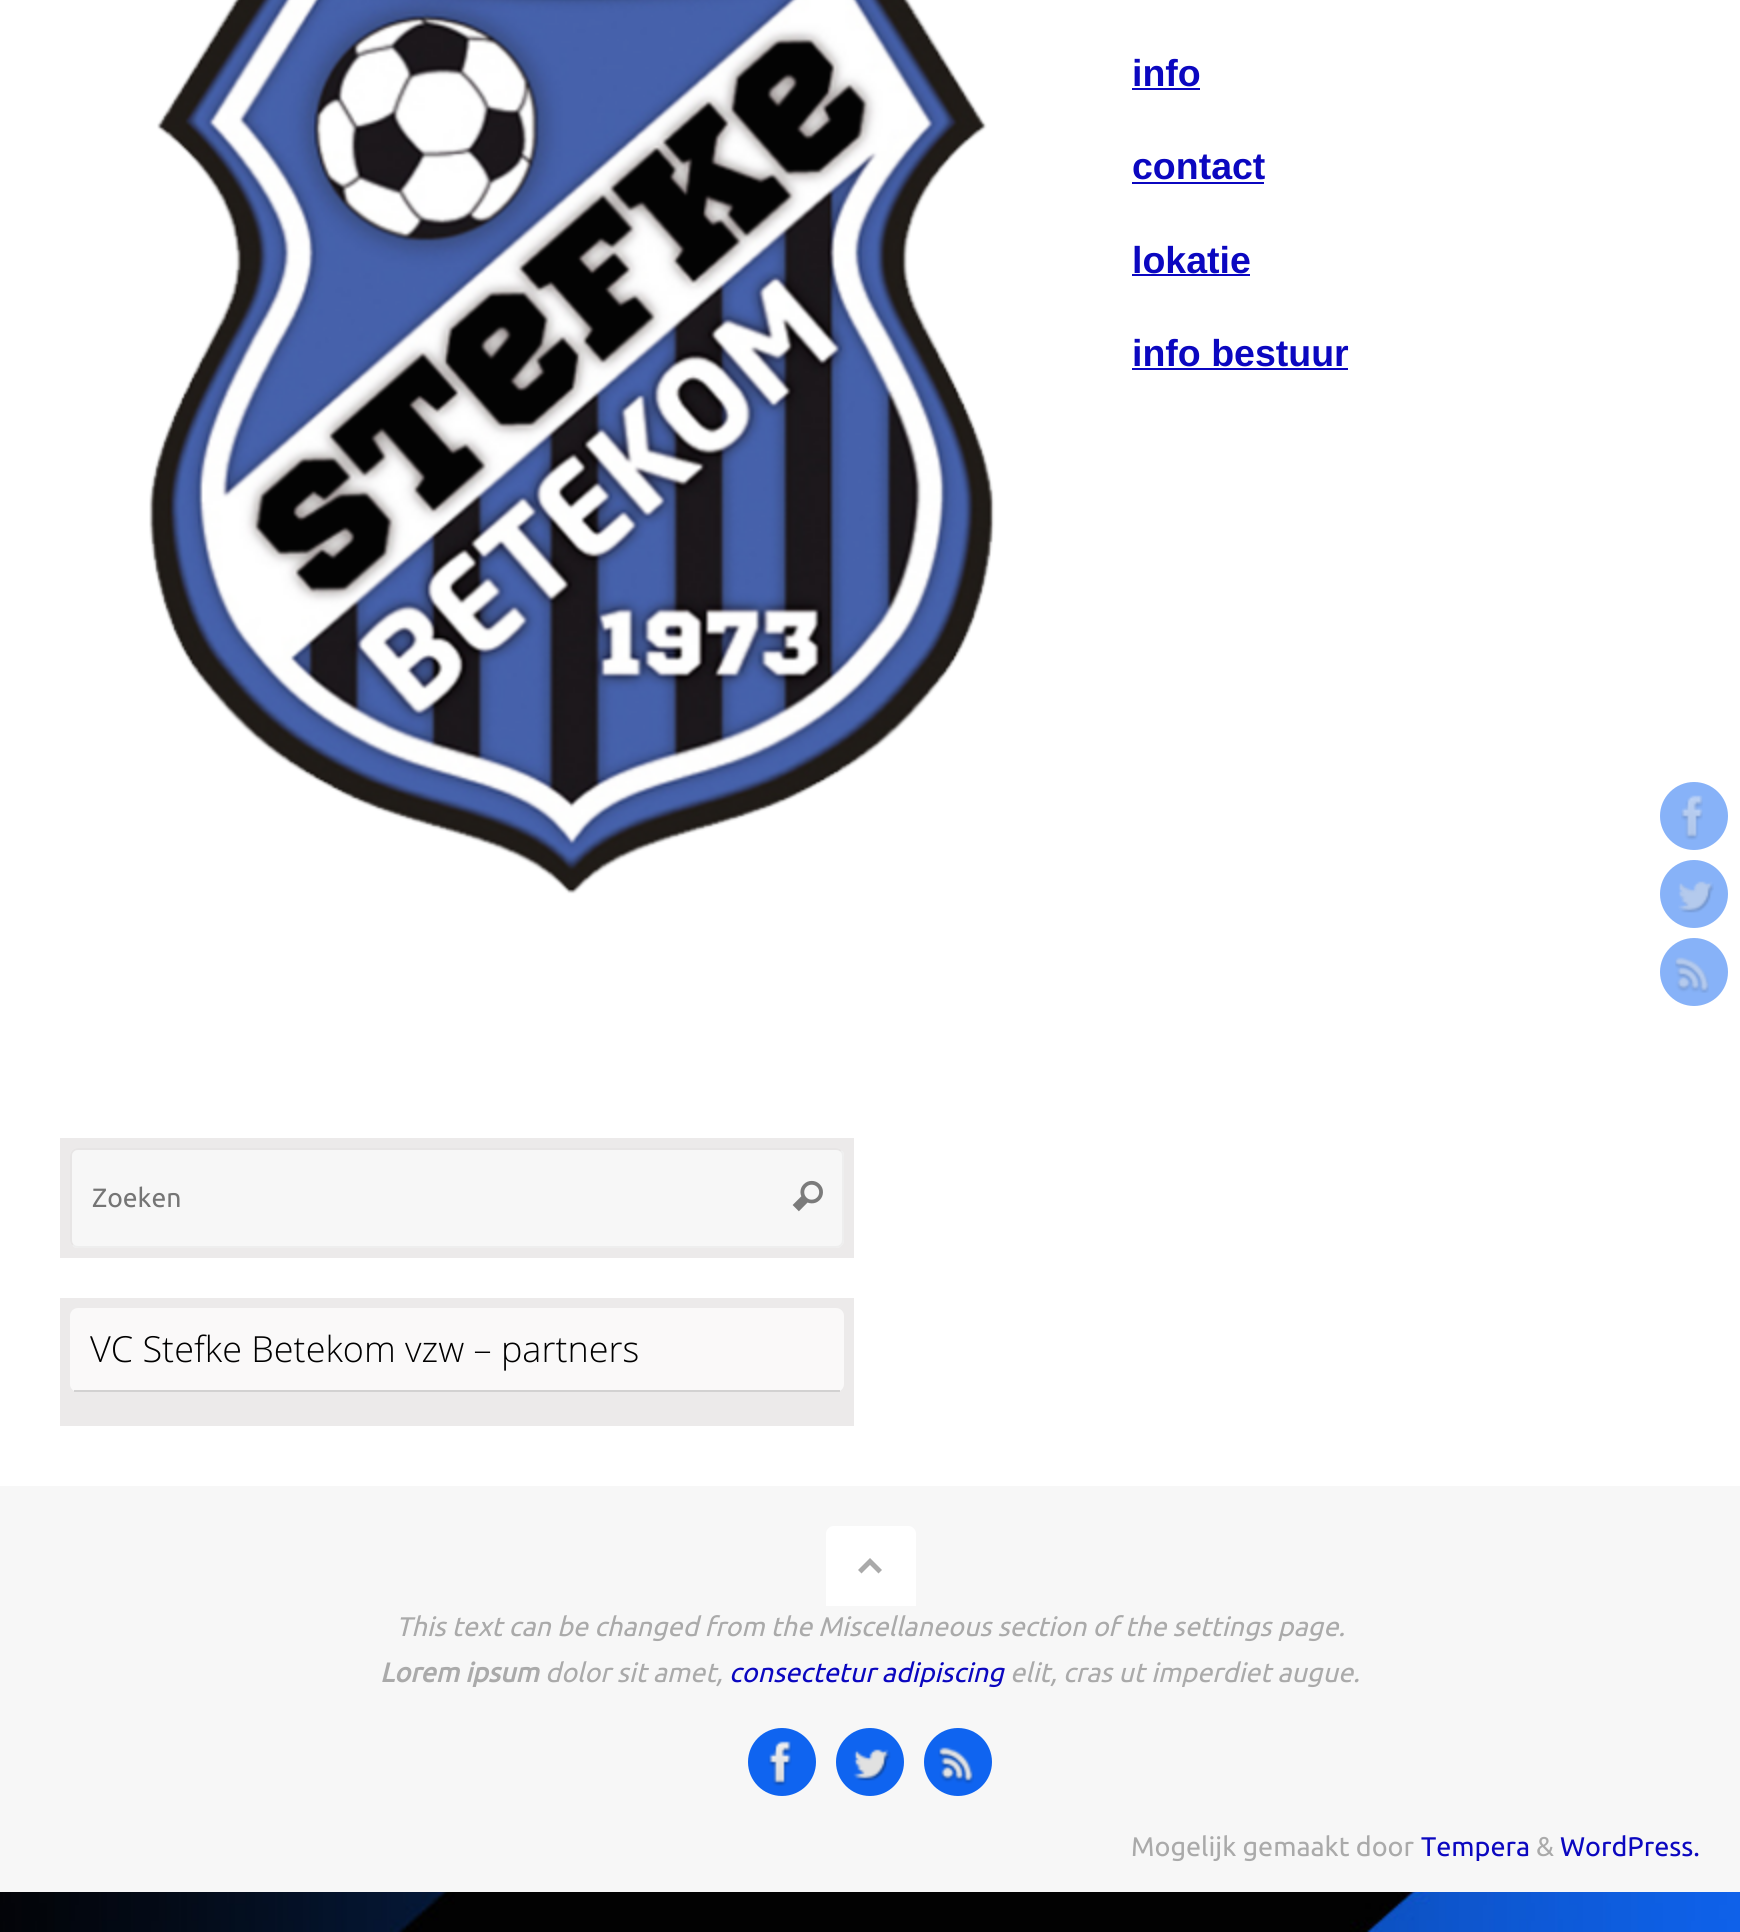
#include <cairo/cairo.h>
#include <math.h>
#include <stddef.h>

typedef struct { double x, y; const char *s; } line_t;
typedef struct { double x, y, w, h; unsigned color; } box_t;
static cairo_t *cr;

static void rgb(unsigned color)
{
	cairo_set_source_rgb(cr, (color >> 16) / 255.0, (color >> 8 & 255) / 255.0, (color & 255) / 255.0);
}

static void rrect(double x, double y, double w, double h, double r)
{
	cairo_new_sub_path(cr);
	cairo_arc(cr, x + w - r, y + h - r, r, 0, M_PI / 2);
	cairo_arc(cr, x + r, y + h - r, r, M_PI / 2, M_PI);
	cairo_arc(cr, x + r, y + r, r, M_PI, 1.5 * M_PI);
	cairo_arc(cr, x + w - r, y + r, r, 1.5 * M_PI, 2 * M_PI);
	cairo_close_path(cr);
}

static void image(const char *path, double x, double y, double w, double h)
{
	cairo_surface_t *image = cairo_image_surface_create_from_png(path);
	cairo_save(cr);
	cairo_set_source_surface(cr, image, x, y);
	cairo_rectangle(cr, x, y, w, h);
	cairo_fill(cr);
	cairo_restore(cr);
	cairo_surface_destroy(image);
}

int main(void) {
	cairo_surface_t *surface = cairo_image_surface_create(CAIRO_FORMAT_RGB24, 1740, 1932);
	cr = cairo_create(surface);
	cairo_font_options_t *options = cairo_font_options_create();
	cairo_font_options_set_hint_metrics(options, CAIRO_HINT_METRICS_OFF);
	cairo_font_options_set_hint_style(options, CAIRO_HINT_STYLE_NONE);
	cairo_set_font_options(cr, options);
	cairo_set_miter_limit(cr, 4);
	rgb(0xffffff);
	cairo_paint(cr);
	image("img/1.png", 0, 1892, 1740, 40);
	image("img/2.png", 149, 0, 846, 894);
	{
		static const box_t items[] = {
			{1132, 88, 68, 2, 0x0b07c0},
			{1132, 182, 132, 2, 0x0b07c0},
			{1132, 274, 118, 2, 0x0b07c0},
			{1132, 368, 216, 2, 0x0b07c0},
			{60, 1138, 794, 120, 0xeceaea},
		};
		for (size_t i = 0; i < sizeof items / sizeof *items; i++) {
			rgb(items[i].color);
			cairo_rectangle(cr, items[i].x, items[i].y, items[i].w, items[i].h);
			cairo_fill(cr);
		}
	}
	rgb(0xf7f7f7);
	rrect(70, 1148, 774, 100, 8);
	cairo_fill(cr);
	cairo_new_path(cr);
	cairo_move_to(cr, 841, 1151);
	cairo_curve_to(cr, 842.5, 1152.5, 843, 1154, 843, 1156);
	cairo_line_to(cr, 843, 1240);
	cairo_curve_to(cr, 843, 1242, 842.5, 1243.5, 841, 1245);
	cairo_curve_to(cr, 839.5, 1246.5, 838, 1247, 836, 1247);
	cairo_line_to(cr, 78, 1247);
	cairo_curve_to(cr, 76, 1247, 74.5, 1246.5, 73, 1245);
	rgb(0xeeeeee);
	cairo_stroke(cr);
	cairo_new_path(cr);
	cairo_move_to(cr, 73, 1245);
	cairo_curve_to(cr, 71.5, 1243.5, 71, 1242, 71, 1240);
	cairo_line_to(cr, 71, 1156);
	cairo_curve_to(cr, 71, 1154, 71.5, 1152.5, 73, 1151);
	cairo_curve_to(cr, 74.5, 1149.5, 76, 1149, 78, 1149);
	cairo_line_to(cr, 836, 1149);
	cairo_curve_to(cr, 838, 1149, 839.5, 1149.5, 841, 1151);
	rgb(0xe7e5e5);
	cairo_stroke(cr);
	image("img/3.png", 792, 1180, 31, 32);
	rgb(0xeceaea);
	cairo_rectangle(cr, 60, 1298, 794, 128);
	cairo_fill(cr);
	rgb(0xfaf9f9);
	rrect(70, 1308, 774, 84, 8);
	cairo_fill(cr);
	rgb(0xd2d1d1);
	cairo_rectangle(cr, 74, 1390, 766, 2);
	cairo_fill(cr);
	rgb(0xf7f7f7);
	cairo_rectangle(cr, 0, 1486, 1740, 406);
	cairo_fill(cr);
	rgb(0xffffff);
	cairo_new_path(cr);
	cairo_move_to(cr, 834, 1526);
	cairo_line_to(cr, 908, 1526);
	cairo_curve_to(cr, 912.5, 1526, 916, 1529.5, 916, 1534);
	cairo_line_to(cr, 916, 1606);
	cairo_line_to(cr, 826, 1606);
	cairo_line_to(cr, 826, 1534);
	cairo_curve_to(cr, 826, 1529.5, 829.5, 1526, 834, 1526);
	cairo_close_path(cr);
	cairo_fill(cr);
	rgb(0xaaaaaa);
	cairo_new_path(cr);
	cairo_move_to(cr, 858, 1570);
	cairo_line_to(cr, 870, 1558);
	cairo_line_to(cr, 882, 1570);
	cairo_line_to(cr, 878.5, 1573.5);
	cairo_line_to(cr, 870, 1565);
	cairo_line_to(cr, 861.5, 1573.5);
	cairo_close_path(cr);
	cairo_fill(cr);
	rgb(0x0f64f0);
	cairo_arc(cr, 782, 1762, 34, 0, 2 * M_PI);
	cairo_fill(cr);
	image("img/4.png", 768, 1741, 24, 45);
	cairo_arc(cr, 870, 1762, 34, 0, 2 * M_PI);
	cairo_fill(cr);
	image("img/5.png", 853, 1749, 38, 32);
	cairo_arc(cr, 958, 1762, 34, 0, 2 * M_PI);
	cairo_fill(cr);
	image("img/6.png", 938, 1747, 36, 37);
	rgb(0x87b2f8);
	cairo_arc(cr, 1694, 816, 34, 0, 2 * M_PI);
	cairo_fill(cr);
	image("img/7.png", 1681, 795, 22, 45);
	cairo_arc(cr, 1694, 894, 34, 0, 2 * M_PI);
	cairo_fill(cr);
	image("img/8.png", 1678, 881, 36, 32);
	cairo_arc(cr, 1694, 972, 34, 0, 2 * M_PI);
	cairo_fill(cr);
	image("img/9.png", 1675, 957, 34, 36);
	cairo_select_font_face(cr, "Liberation Sans", CAIRO_FONT_SLANT_NORMAL, CAIRO_FONT_WEIGHT_BOLD);
	cairo_set_font_size(cr, 37.5);
	rgb(0x0b07c0);
	{
		static const line_t items[] = {
			{1132, 86, "info"},
			{1132, 179, "contact"},
			{1132, 273, "lokatie"},
			{1132, 366, "info bestuur"},
		};
		for (size_t i = 0; i < sizeof items / sizeof *items; i++) {
			cairo_move_to(cr, items[i].x, items[i].y);
			cairo_show_text(cr, items[i].s);
		}
	}
	cairo_select_font_face(cr, "Ubuntu", CAIRO_FONT_SLANT_NORMAL, CAIRO_FONT_WEIGHT_NORMAL);
	cairo_set_font_size(cr, 26.5);
	rgb(0x757575);
	cairo_move_to(cr, 92, 1207);
	cairo_show_text(cr, "Zoeken");
	cairo_select_font_face(cr, "Open Sans Light", CAIRO_FONT_SLANT_NORMAL, CAIRO_FONT_WEIGHT_NORMAL);
	cairo_set_font_size(cr, 36);
	rgb(0x000000);
	cairo_move_to(cr, 90, 1362);
	cairo_show_text(cr, "VC Stefke Betekom vzw – partners");
	cairo_select_font_face(cr, "Ubuntu", CAIRO_FONT_SLANT_ITALIC, CAIRO_FONT_WEIGHT_NORMAL);
	cairo_set_font_size(cr, 27);
	rgb(0xaaaaaa);
	cairo_move_to(cr, 396, 1636);
	cairo_show_text(cr, "This text can be changed from the Miscellaneous section of the settings page.");
	cairo_select_font_face(cr, "Ubuntu", CAIRO_FONT_SLANT_ITALIC, CAIRO_FONT_WEIGHT_BOLD);
	cairo_move_to(cr, 380, 1682);
	cairo_show_text(cr, "Lorem ipsum");
	cairo_select_font_face(cr, "Ubuntu", CAIRO_FONT_SLANT_ITALIC, CAIRO_FONT_WEIGHT_NORMAL);
	cairo_move_to(cr, 545, 1682);
	cairo_show_text(cr, "dolor sit amet,");
	rgb(0x0b07c0);
	cairo_move_to(cr, 729, 1682);
	cairo_show_text(cr, "consectetur adipiscing");
	rgb(0xaaaaaa);
	cairo_move_to(cr, 1010, 1682);
	cairo_show_text(cr, "elit, cras ut imperdiet augue.");
	cairo_select_font_face(cr, "Ubuntu", CAIRO_FONT_SLANT_NORMAL, CAIRO_FONT_WEIGHT_NORMAL);
	cairo_move_to(cr, 1131, 1856);
	cairo_show_text(cr, "Mogelijk gemaakt door");
	rgb(0x0b07c0);
	cairo_move_to(cr, 1421, 1856);
	cairo_show_text(cr, "Tempera");
	rgb(0xaaaaaa);
	cairo_move_to(cr, 1536, 1856);
	cairo_show_text(cr, "&");
	rgb(0x0b07c0);
	cairo_move_to(cr, 1560, 1856);
	cairo_show_text(cr, "WordPress.");
	cairo_surface_write_to_png(surface, "page.png");
	cairo_font_options_destroy(options);
	cairo_destroy(cr);
	cairo_surface_destroy(surface);
	return 0;
}
